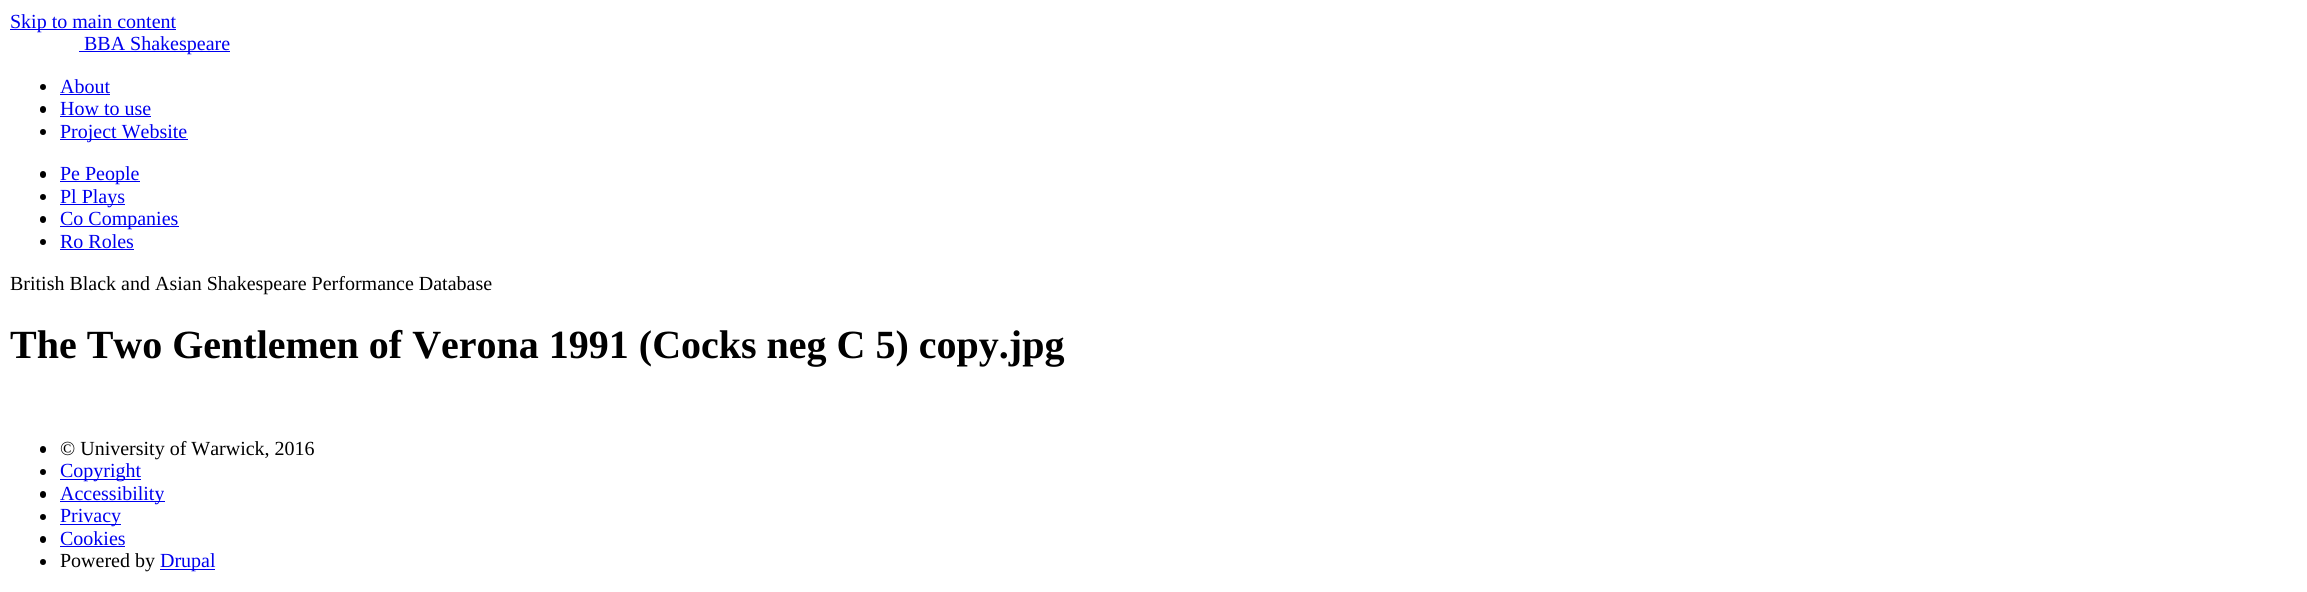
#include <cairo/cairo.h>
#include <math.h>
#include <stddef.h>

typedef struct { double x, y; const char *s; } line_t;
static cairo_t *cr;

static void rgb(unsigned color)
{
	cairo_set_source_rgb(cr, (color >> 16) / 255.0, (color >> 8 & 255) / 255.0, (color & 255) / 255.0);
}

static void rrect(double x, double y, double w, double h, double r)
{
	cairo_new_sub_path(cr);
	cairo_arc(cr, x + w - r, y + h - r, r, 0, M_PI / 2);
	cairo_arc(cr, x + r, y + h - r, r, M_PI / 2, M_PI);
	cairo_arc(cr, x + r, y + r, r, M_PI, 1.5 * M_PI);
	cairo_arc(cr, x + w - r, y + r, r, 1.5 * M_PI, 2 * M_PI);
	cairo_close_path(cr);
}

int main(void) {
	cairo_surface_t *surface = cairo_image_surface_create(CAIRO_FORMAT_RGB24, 2307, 592);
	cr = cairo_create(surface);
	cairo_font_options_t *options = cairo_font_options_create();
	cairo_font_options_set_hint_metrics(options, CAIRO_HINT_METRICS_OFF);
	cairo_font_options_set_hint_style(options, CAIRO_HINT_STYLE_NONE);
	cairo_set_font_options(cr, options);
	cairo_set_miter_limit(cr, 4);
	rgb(0xffffff);
	cairo_paint(cr);
	rgb(0x0000ee);
	cairo_rectangle(cr, 10, 29, 166, 1);
	cairo_fill(cr);
	cairo_rectangle(cr, 79, 51, 151, 1);
	cairo_fill(cr);
	rgb(0x000000);
	cairo_arc(cr, 43, 87, 3, 0, 2 * M_PI);
	cairo_fill(cr);
	rgb(0x0000ee);
	cairo_rectangle(cr, 60, 94, 50, 1);
	cairo_fill(cr);
	rgb(0x000000);
	rrect(40, 106, 6, 7, 3);
	cairo_fill(cr);
	rgb(0x0000ee);
	cairo_rectangle(cr, 60, 116, 91, 1);
	cairo_fill(cr);
	rgb(0x000000);
	cairo_arc(cr, 43, 132, 3, 0, 2 * M_PI);
	cairo_fill(cr);
	rgb(0x0000ee);
	cairo_rectangle(cr, 60, 139, 128, 1);
	cairo_fill(cr);
	rgb(0x000000);
	rrect(40, 171, 6, 7, 3);
	cairo_fill(cr);
	rgb(0x0000ee);
	cairo_rectangle(cr, 60, 181, 80, 1);
	cairo_fill(cr);
	rgb(0x000000);
	cairo_arc(cr, 43, 197, 3, 0, 2 * M_PI);
	cairo_fill(cr);
	rgb(0x0000ee);
	cairo_rectangle(cr, 60, 204, 65, 1);
	cairo_fill(cr);
	rgb(0x000000);
	rrect(40, 216, 6, 7, 3);
	cairo_fill(cr);
	rgb(0x0000ee);
	cairo_rectangle(cr, 60, 226, 119, 1);
	cairo_fill(cr);
	rgb(0x000000);
	cairo_arc(cr, 43, 242, 3, 0, 2 * M_PI);
	cairo_fill(cr);
	rgb(0x0000ee);
	cairo_rectangle(cr, 60, 249, 74, 1);
	cairo_fill(cr);
	rgb(0x000000);
	rrect(40, 446, 6, 7, 3);
	cairo_fill(cr);
	cairo_arc(cr, 43, 472, 3, 0, 2 * M_PI);
	cairo_fill(cr);
	rgb(0x0000ee);
	cairo_rectangle(cr, 60, 479, 81, 1);
	cairo_fill(cr);
	rgb(0x000000);
	rrect(40, 491, 6, 7, 3);
	cairo_fill(cr);
	rgb(0x0000ee);
	cairo_rectangle(cr, 60, 501, 105, 1);
	cairo_fill(cr);
	rgb(0x000000);
	cairo_arc(cr, 43, 517, 3, 0, 2 * M_PI);
	cairo_fill(cr);
	rgb(0x0000ee);
	cairo_rectangle(cr, 60, 524, 61, 1);
	cairo_fill(cr);
	rgb(0x000000);
	rrect(40, 536, 6, 7, 3);
	cairo_fill(cr);
	rgb(0x0000ee);
	cairo_rectangle(cr, 60, 546, 65, 1);
	cairo_fill(cr);
	rgb(0x000000);
	cairo_arc(cr, 43, 562, 3, 0, 2 * M_PI);
	cairo_fill(cr);
	rgb(0x0000ee);
	cairo_rectangle(cr, 160, 569, 55, 1);
	cairo_fill(cr);
	cairo_select_font_face(cr, "Liberation Serif", CAIRO_FONT_SLANT_NORMAL, CAIRO_FONT_WEIGHT_NORMAL);
	cairo_set_font_size(cr, 20);
	{
		static const line_t items[] = {
			{10, 28, "Skip to main content"},
			{84, 50, "BBA Shakespeare"},
			{60, 93, "About"},
			{60, 115, "How to use"},
			{60, 138, "Project Website"},
			{60, 180, "Pe People"},
			{60, 203, "Pl Plays"},
			{60, 225, "Co Companies"},
			{60, 248, "Ro Roles"},
		};
		for (size_t i = 0; i < sizeof items / sizeof *items; i++) {
			cairo_move_to(cr, items[i].x, items[i].y);
			cairo_show_text(cr, items[i].s);
		}
	}
	rgb(0x000000);
	cairo_move_to(cr, 10, 290);
	cairo_show_text(cr, "British Black and Asian Shakespeare Performance Database");
	cairo_select_font_face(cr, "Liberation Serif", CAIRO_FONT_SLANT_NORMAL, CAIRO_FONT_WEIGHT_BOLD);
	cairo_set_font_size(cr, 40);
	cairo_move_to(cr, 10, 358);
	cairo_show_text(cr, "The Two Gentlemen of Verona 1991 (Cocks neg C 5) copy.jpg");
	cairo_select_font_face(cr, "Liberation Serif", CAIRO_FONT_SLANT_NORMAL, CAIRO_FONT_WEIGHT_NORMAL);
	cairo_set_font_size(cr, 20);
	cairo_move_to(cr, 60, 455);
	cairo_show_text(cr, "© University of Warwick, 2016");
	rgb(0x0000ee);
	{
		static const line_t items[] = {
			{60, 477, "Copyright"},
			{60, 500, "Accessibility"},
			{60, 522, "Privacy"},
			{60, 545, "Cookies"},
		};
		for (size_t i = 0; i < sizeof items / sizeof *items; i++) {
			cairo_move_to(cr, items[i].x, items[i].y);
			cairo_show_text(cr, items[i].s);
		}
	}
	rgb(0x000000);
	cairo_move_to(cr, 60, 567);
	cairo_show_text(cr, "Powered by");
	rgb(0x0000ee);
	cairo_move_to(cr, 160, 567);
	cairo_show_text(cr, "Drupal");
	cairo_surface_write_to_png(surface, "page.png");
	cairo_font_options_destroy(options);
	cairo_destroy(cr);
	cairo_surface_destroy(surface);
	return 0;
}
